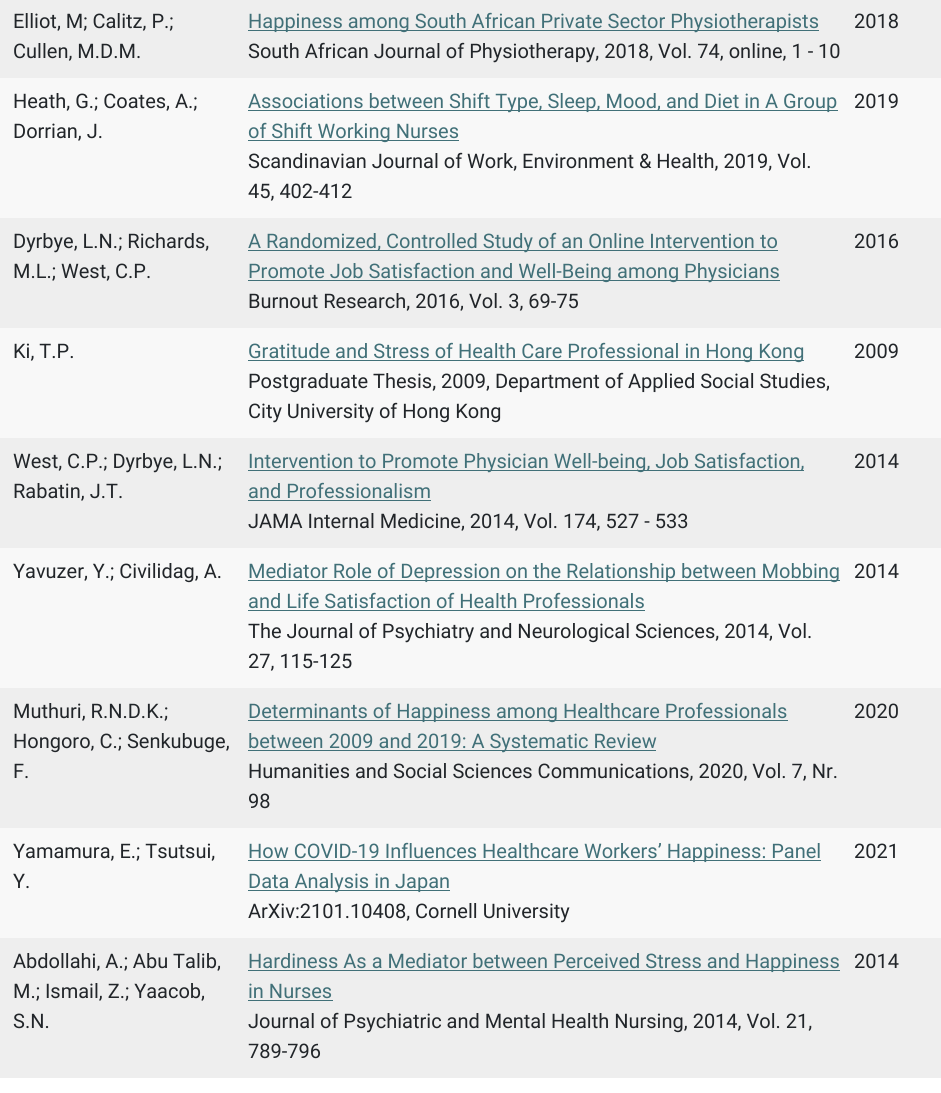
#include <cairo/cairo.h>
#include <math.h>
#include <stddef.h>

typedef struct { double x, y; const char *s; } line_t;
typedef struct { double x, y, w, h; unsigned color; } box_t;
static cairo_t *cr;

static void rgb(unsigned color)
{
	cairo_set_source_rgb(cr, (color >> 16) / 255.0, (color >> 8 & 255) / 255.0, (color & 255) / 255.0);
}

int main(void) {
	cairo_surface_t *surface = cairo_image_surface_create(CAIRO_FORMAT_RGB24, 941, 1093);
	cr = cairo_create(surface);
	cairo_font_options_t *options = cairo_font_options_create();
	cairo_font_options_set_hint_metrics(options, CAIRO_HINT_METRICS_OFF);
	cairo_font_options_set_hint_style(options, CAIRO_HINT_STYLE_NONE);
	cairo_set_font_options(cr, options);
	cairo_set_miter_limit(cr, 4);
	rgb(0xffffff);
	cairo_paint(cr);
	{
		static const box_t items[] = {
			{0, 0, 941, 78, 0xeeeeee},
			{248, 30, 571, 1, 0x417078},
			{0, 78, 941, 140, 0xf8f8f8},
			{248, 110, 590, 1, 0x417078},
			{248, 140, 211, 1, 0x417078},
			{0, 218, 941, 110, 0xeeeeee},
			{248, 250, 530, 1, 0x417078},
			{248, 280, 532, 1, 0x417078},
			{0, 328, 941, 110, 0xf8f8f8},
			{248, 360, 556, 1, 0x417078},
			{0, 438, 941, 110, 0xeeeeee},
			{248, 470, 556, 1, 0x417078},
			{248, 500, 183, 1, 0x417078},
			{0, 548, 941, 140, 0xf8f8f8},
			{248, 580, 592, 1, 0x417078},
			{248, 610, 397, 1, 0x417078},
			{0, 688, 941, 140, 0xeeeeee},
			{248, 720, 540, 1, 0x417078},
			{248, 750, 408, 1, 0x417078},
			{0, 828, 941, 110, 0xf8f8f8},
			{248, 860, 573, 1, 0x417078},
			{248, 890, 202, 1, 0x417078},
			{0, 938, 941, 140, 0xeeeeee},
			{248, 970, 592, 1, 0x417078},
			{248, 1000, 85, 1, 0x417078},
		};
		for (size_t i = 0; i < sizeof items / sizeof *items; i++) {
			rgb(items[i].color);
			cairo_rectangle(cr, items[i].x, items[i].y, items[i].w, items[i].h);
			cairo_fill(cr);
		}
	}
	cairo_select_font_face(cr, "Roboto", CAIRO_FONT_SLANT_NORMAL, CAIRO_FONT_WEIGHT_NORMAL);
	cairo_set_font_size(cr, 20);
	rgb(0x212529);
	cairo_move_to(cr, 13, 28);
	cairo_show_text(cr, "Elliot, M; Calitz, P.;");
	cairo_move_to(cr, 13, 58);
	cairo_show_text(cr, "Cullen, M.D.M.");
	rgb(0x417078);
	cairo_move_to(cr, 248, 28);
	cairo_show_text(cr, "Happiness among South African Private Sector Physiotherapists");
	rgb(0x212529);
	{
		static const line_t items[] = {
			{248, 58, "South African Journal of Physiotherapy, 2018, Vol. 74, online, 1 - 10"},
			{854, 28, "2018"},
			{13, 108, "Heath, G.; Coates, A.;"},
			{13, 138, "Dorrian, J."},
		};
		for (size_t i = 0; i < sizeof items / sizeof *items; i++) {
			cairo_move_to(cr, items[i].x, items[i].y);
			cairo_show_text(cr, items[i].s);
		}
	}
	rgb(0x417078);
	cairo_move_to(cr, 248, 108);
	cairo_show_text(cr, "Associations between Shift Type, Sleep, Mood, and Diet in A Group");
	cairo_move_to(cr, 248, 138);
	cairo_show_text(cr, "of Shift Working Nurses");
	rgb(0x212529);
	{
		static const line_t items[] = {
			{248, 168, "Scandinavian Journal of Work, Environment & Health, 2019, Vol."},
			{248, 198, "45, 402-412"},
			{854, 108, "2019"},
			{13, 248, "Dyrbye, L.N.; Richards,"},
			{13, 278, "M.L.; West, C.P."},
		};
		for (size_t i = 0; i < sizeof items / sizeof *items; i++) {
			cairo_move_to(cr, items[i].x, items[i].y);
			cairo_show_text(cr, items[i].s);
		}
	}
	rgb(0x417078);
	cairo_move_to(cr, 248, 248);
	cairo_show_text(cr, "A Randomized, Controlled Study of an Online Intervention to");
	cairo_move_to(cr, 248, 278);
	cairo_show_text(cr, "Promote Job Satisfaction and Well-Being among Physicians");
	rgb(0x212529);
	{
		static const line_t items[] = {
			{248, 308, "Burnout Research, 2016, Vol. 3, 69-75"},
			{854, 248, "2016"},
			{13, 358, "Ki, T.P."},
		};
		for (size_t i = 0; i < sizeof items / sizeof *items; i++) {
			cairo_move_to(cr, items[i].x, items[i].y);
			cairo_show_text(cr, items[i].s);
		}
	}
	rgb(0x417078);
	cairo_move_to(cr, 248, 358);
	cairo_show_text(cr, "Gratitude and Stress of Health Care Professional in Hong Kong");
	rgb(0x212529);
	{
		static const line_t items[] = {
			{248, 388, "Postgraduate Thesis, 2009, Department of Applied Social Studies,"},
			{248, 418, "City University of Hong Kong"},
			{854, 358, "2009"},
			{13, 468, "West, C.P.; Dyrbye, L.N.;"},
			{13, 498, "Rabatin, J.T."},
		};
		for (size_t i = 0; i < sizeof items / sizeof *items; i++) {
			cairo_move_to(cr, items[i].x, items[i].y);
			cairo_show_text(cr, items[i].s);
		}
	}
	rgb(0x417078);
	cairo_move_to(cr, 248, 468);
	cairo_show_text(cr, "Intervention to Promote Physician Well-being, Job Satisfaction,");
	cairo_move_to(cr, 248, 498);
	cairo_show_text(cr, "and Professionalism");
	rgb(0x212529);
	{
		static const line_t items[] = {
			{248, 528, "JAMA Internal Medicine, 2014, Vol. 174, 527 - 533"},
			{854, 468, "2014"},
			{13, 578, "Yavuzer, Y.; Civilidag, A."},
		};
		for (size_t i = 0; i < sizeof items / sizeof *items; i++) {
			cairo_move_to(cr, items[i].x, items[i].y);
			cairo_show_text(cr, items[i].s);
		}
	}
	rgb(0x417078);
	cairo_move_to(cr, 248, 578);
	cairo_show_text(cr, "Mediator Role of Depression on the Relationship between Mobbing");
	cairo_move_to(cr, 248, 608);
	cairo_show_text(cr, "and Life Satisfaction of Health Professionals");
	rgb(0x212529);
	{
		static const line_t items[] = {
			{248, 638, "The Journal of Psychiatry and Neurological Sciences, 2014, Vol."},
			{248, 668, "27, 115-125"},
			{854, 578, "2014"},
			{13, 718, "Muthuri, R.N.D.K.;"},
			{13, 748, "Hongoro, C.; Senkubuge,"},
			{13, 778, "F."},
		};
		for (size_t i = 0; i < sizeof items / sizeof *items; i++) {
			cairo_move_to(cr, items[i].x, items[i].y);
			cairo_show_text(cr, items[i].s);
		}
	}
	rgb(0x417078);
	cairo_move_to(cr, 248, 718);
	cairo_show_text(cr, "Determinants of Happiness among Healthcare Professionals");
	cairo_move_to(cr, 248, 748);
	cairo_show_text(cr, "between 2009 and 2019: A Systematic Review");
	rgb(0x212529);
	{
		static const line_t items[] = {
			{248, 778, "Humanities and Social Sciences Communications, 2020, Vol. 7, Nr."},
			{248, 808, "98"},
			{854, 718, "2020"},
			{13, 858, "Yamamura, E.; Tsutsui,"},
			{13, 888, "Y."},
		};
		for (size_t i = 0; i < sizeof items / sizeof *items; i++) {
			cairo_move_to(cr, items[i].x, items[i].y);
			cairo_show_text(cr, items[i].s);
		}
	}
	rgb(0x417078);
	cairo_move_to(cr, 248, 858);
	cairo_show_text(cr, "How COVID-19 Influences Healthcare Workers’ Happiness: Panel");
	cairo_move_to(cr, 248, 888);
	cairo_show_text(cr, "Data Analysis in Japan");
	rgb(0x212529);
	{
		static const line_t items[] = {
			{248, 918, "ArXiv:2101.10408, Cornell University"},
			{854, 858, "2021"},
			{13, 968, "Abdollahi, A.; Abu Talib,"},
			{13, 998, "M.; Ismail, Z.; Yaacob,"},
			{13, 1028, "S.N."},
		};
		for (size_t i = 0; i < sizeof items / sizeof *items; i++) {
			cairo_move_to(cr, items[i].x, items[i].y);
			cairo_show_text(cr, items[i].s);
		}
	}
	rgb(0x417078);
	cairo_move_to(cr, 248, 968);
	cairo_show_text(cr, "Hardiness As a Mediator between Perceived Stress and Happiness");
	cairo_move_to(cr, 248, 998);
	cairo_show_text(cr, "in Nurses");
	rgb(0x212529);
	{
		static const line_t items[] = {
			{248, 1028, "Journal of Psychiatric and Mental Health Nursing, 2014, Vol. 21,"},
			{248, 1058, "789-796"},
			{854, 968, "2014"},
		};
		for (size_t i = 0; i < sizeof items / sizeof *items; i++) {
			cairo_move_to(cr, items[i].x, items[i].y);
			cairo_show_text(cr, items[i].s);
		}
	}
	cairo_surface_write_to_png(surface, "page.png");
	cairo_font_options_destroy(options);
	cairo_destroy(cr);
	cairo_surface_destroy(surface);
	return 0;
}
